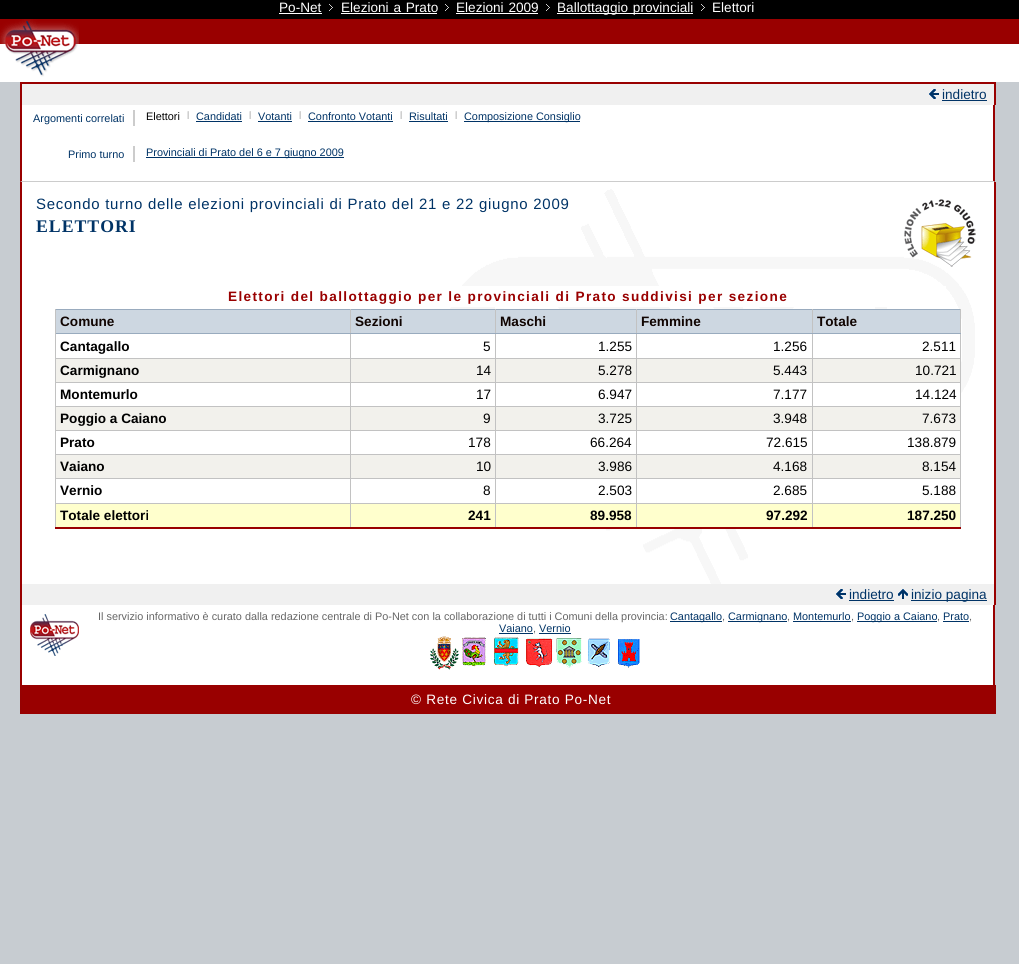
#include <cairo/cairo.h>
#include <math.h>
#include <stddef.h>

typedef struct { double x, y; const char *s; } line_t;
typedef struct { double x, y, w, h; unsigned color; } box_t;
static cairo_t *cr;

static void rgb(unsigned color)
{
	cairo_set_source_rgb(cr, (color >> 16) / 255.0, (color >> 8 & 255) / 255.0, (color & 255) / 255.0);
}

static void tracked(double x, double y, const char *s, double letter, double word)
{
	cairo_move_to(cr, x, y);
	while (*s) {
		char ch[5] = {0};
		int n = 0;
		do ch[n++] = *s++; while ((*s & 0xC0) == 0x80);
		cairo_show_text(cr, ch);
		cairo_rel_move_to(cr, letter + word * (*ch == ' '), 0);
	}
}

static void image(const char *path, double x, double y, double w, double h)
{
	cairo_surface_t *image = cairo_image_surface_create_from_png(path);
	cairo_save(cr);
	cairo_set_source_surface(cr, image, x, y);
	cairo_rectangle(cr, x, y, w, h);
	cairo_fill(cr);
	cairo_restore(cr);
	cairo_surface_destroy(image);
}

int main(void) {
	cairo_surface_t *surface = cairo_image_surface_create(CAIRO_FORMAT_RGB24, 1019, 964);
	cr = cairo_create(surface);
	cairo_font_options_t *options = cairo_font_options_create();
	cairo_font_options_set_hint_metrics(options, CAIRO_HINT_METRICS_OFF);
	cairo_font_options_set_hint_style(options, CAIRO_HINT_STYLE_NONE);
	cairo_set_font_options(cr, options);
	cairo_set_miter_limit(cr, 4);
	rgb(0xc7ccd1);
	cairo_paint(cr);
	rgb(0x000000);
	cairo_rectangle(cr, 0, 0, 1019, 19);
	cairo_fill(cr);
	rgb(0xffffff);
	cairo_rectangle(cr, 279, 13, 43, 1);
	cairo_fill(cr);
	image("img/1.png", 329, 4, 4, 7);
	cairo_rectangle(cr, 341, 13, 96, 1);
	cairo_fill(cr);
	image("img/1.png", 445, 4, 4, 7);
	cairo_rectangle(cr, 456, 13, 82, 1);
	cairo_fill(cr);
	image("img/1.png", 546, 4, 4, 7);
	cairo_rectangle(cr, 557, 13, 136, 1);
	cairo_fill(cr);
	image("img/1.png", 701, 4, 4, 7);
	cairo_rectangle(cr, 0, 44, 1019, 38);
	cairo_fill(cr);
	rgb(0x990000);
	cairo_rectangle(cr, 79, 19, 940, 25);
	cairo_fill(cr);
	image("img/2.png", 0, 19, 79, 58);
	{
		static const box_t items[] = {
			{22, 84, 972, 21, 0xf0f0f0},
			{20, 82, 976, 2, 0x990000},
			{994, 82, 2, 23, 0x990000},
			{20, 82, 2, 23, 0x990000},
		};
		for (size_t i = 0; i < sizeof items / sizeof *items; i++) {
			rgb(items[i].color);
			cairo_rectangle(cr, items[i].x, items[i].y, items[i].w, items[i].h);
			cairo_fill(cr);
		}
	}
	image("img/3.png", 929, 89, 10, 10);
	rgb(0x003366);
	cairo_rectangle(cr, 942, 100, 45, 1);
	cairo_fill(cr);
	rgb(0xffffff);
	cairo_rectangle(cr, 20, 105, 975, 77);
	cairo_fill(cr);
	rgb(0x990000);
	cairo_new_path(cr);
	cairo_move_to(cr, 995, 105);
	cairo_line_to(cr, 995, 182);
	cairo_line_to(cr, 993, 181);
	cairo_line_to(cr, 993, 105);
	cairo_close_path(cr);
	cairo_fill(cr);
	rgb(0xcccccc);
	cairo_new_path(cr);
	cairo_move_to(cr, 995, 182);
	cairo_line_to(cr, 20, 182);
	cairo_line_to(cr, 22, 181);
	cairo_line_to(cr, 993, 181);
	cairo_close_path(cr);
	cairo_fill(cr);
	rgb(0x990000);
	cairo_new_path(cr);
	cairo_move_to(cr, 20, 182);
	cairo_line_to(cr, 20, 105);
	cairo_line_to(cr, 22, 105);
	cairo_line_to(cr, 22, 181);
	cairo_close_path(cr);
	cairo_fill(cr);
	rgb(0xcccccc);
	cairo_rectangle(cr, 133, 110, 2, 16);
	cairo_fill(cr);
	image("img/4.png", 187, 111, 2, 8);
	rgb(0x003366);
	cairo_rectangle(cr, 196, 121, 46, 1);
	cairo_fill(cr);
	image("img/4.png", 249, 111, 2, 8);
	cairo_rectangle(cr, 258, 121, 34, 1);
	cairo_fill(cr);
	image("img/4.png", 299, 111, 2, 8);
	cairo_rectangle(cr, 308, 121, 85, 1);
	cairo_fill(cr);
	image("img/4.png", 400, 111, 2, 8);
	cairo_rectangle(cr, 409, 121, 39, 1);
	cairo_fill(cr);
	image("img/4.png", 455, 111, 2, 8);
	{
		static const box_t items[] = {
			{464, 121, 116, 1, 0x003366},
			{133, 146, 2, 16, 0xcccccc},
			{146, 157, 198, 1, 0x003366},
			{22, 182, 972, 402, 0xffffff},
		};
		for (size_t i = 0; i < sizeof items / sizeof *items; i++) {
			rgb(items[i].color);
			cairo_rectangle(cr, items[i].x, items[i].y, items[i].w, items[i].h);
			cairo_fill(cr);
		}
	}
	image("img/5.png", 447, 189, 528, 395);
	rgb(0x990000);
	cairo_rectangle(cr, 994, 182, 2, 423);
	cairo_fill(cr);
	cairo_rectangle(cr, 20, 182, 2, 503);
	cairo_fill(cr);
	image("img/6.png", 904, 199, 72, 68);
	{
		static const box_t items[] = {
			{812, 503, 149, 1, 0xc2c2c2},
			{812, 503, 1, 25, 0xc2c2c2},
			{636, 503, 177, 1, 0xc2c2c2},
			{636, 503, 1, 25, 0xc2c2c2},
			{495, 503, 142, 1, 0xc2c2c2},
			{495, 503, 1, 25, 0xc2c2c2},
			{350, 503, 146, 1, 0xc2c2c2},
			{350, 503, 1, 25, 0xc2c2c2},
			{55, 503, 296, 1, 0xc2c2c2},
			{55, 503, 1, 25, 0xc2c2c2},
			{960, 503, 1, 25, 0xc2c2c2},
			{55, 527, 906, 2, 0x990000},
			{451, 286, 495, 21, 0xffffff},
			{56, 310, 294, 23, 0xcdd7e1},
			{55, 309, 906, 1, 0x99abbe},
			{812, 358, 149, 1, 0xc2c2c2},
			{812, 382, 149, 1, 0xc2c2c2},
			{812, 406, 149, 1, 0xc2c2c2},
			{812, 430, 149, 1, 0xc2c2c2},
			{812, 454, 149, 1, 0xc2c2c2},
			{812, 478, 149, 1, 0xc2c2c2},
			{960, 478, 1, 26, 0xc2c2c2},
			{960, 454, 1, 25, 0xc2c2c2},
			{960, 430, 1, 25, 0xc2c2c2},
			{960, 406, 1, 25, 0xc2c2c2},
			{960, 382, 1, 25, 0xc2c2c2},
			{960, 333, 1, 50, 0xc2c2c2},
			{960, 309, 1, 25, 0xc2c2c2},
			{812, 478, 1, 26, 0xc2c2c2},
			{636, 478, 177, 1, 0xc2c2c2},
			{812, 454, 1, 25, 0xc2c2c2},
			{636, 454, 177, 1, 0xc2c2c2},
			{812, 430, 1, 25, 0xc2c2c2},
			{636, 430, 177, 1, 0xc2c2c2},
			{812, 406, 1, 25, 0xc2c2c2},
			{636, 406, 177, 1, 0xc2c2c2},
			{812, 382, 1, 25, 0xc2c2c2},
			{636, 382, 177, 1, 0xc2c2c2},
			{812, 358, 1, 25, 0xc2c2c2},
			{636, 358, 177, 1, 0xc2c2c2},
			{812, 333, 1, 26, 0xc2c2c2},
			{812, 333, 149, 1, 0x99abbe},
			{812, 309, 1, 25, 0xc2c2c2},
			{636, 478, 1, 26, 0xc2c2c2},
			{495, 478, 142, 1, 0xc2c2c2},
			{636, 454, 1, 25, 0xc2c2c2},
			{495, 454, 142, 1, 0xc2c2c2},
			{636, 430, 1, 25, 0xc2c2c2},
			{495, 430, 142, 1, 0xc2c2c2},
			{636, 406, 1, 25, 0xc2c2c2},
			{495, 406, 142, 1, 0xc2c2c2},
			{636, 382, 1, 25, 0xc2c2c2},
			{495, 382, 142, 1, 0xc2c2c2},
			{636, 358, 1, 25, 0xc2c2c2},
			{495, 358, 142, 1, 0xc2c2c2},
			{636, 333, 1, 26, 0xc2c2c2},
			{636, 333, 177, 1, 0x99abbe},
			{636, 309, 1, 25, 0xc2c2c2},
			{495, 478, 1, 26, 0xc2c2c2},
			{350, 478, 146, 1, 0xc2c2c2},
			{495, 454, 1, 25, 0xc2c2c2},
			{350, 454, 146, 1, 0xc2c2c2},
			{495, 430, 1, 25, 0xc2c2c2},
			{350, 430, 146, 1, 0xc2c2c2},
			{495, 406, 1, 25, 0xc2c2c2},
			{350, 406, 146, 1, 0xc2c2c2},
			{495, 382, 1, 25, 0xc2c2c2},
			{350, 382, 146, 1, 0xc2c2c2},
			{495, 358, 1, 25, 0xc2c2c2},
			{350, 358, 146, 1, 0xc2c2c2},
			{495, 333, 1, 26, 0xc2c2c2},
			{495, 333, 142, 1, 0x99abbe},
			{495, 309, 1, 25, 0xc2c2c2},
			{350, 478, 1, 26, 0xc2c2c2},
			{55, 478, 296, 1, 0xc2c2c2},
			{350, 454, 1, 25, 0xc2c2c2},
			{55, 454, 296, 1, 0xc2c2c2},
			{350, 430, 1, 25, 0xc2c2c2},
			{55, 430, 296, 1, 0xc2c2c2},
			{350, 406, 1, 25, 0xc2c2c2},
			{55, 406, 296, 1, 0xc2c2c2},
			{350, 382, 1, 25, 0xc2c2c2},
			{55, 382, 296, 1, 0xc2c2c2},
			{350, 358, 1, 25, 0xc2c2c2},
			{55, 358, 296, 1, 0xc2c2c2},
			{350, 333, 1, 26, 0xc2c2c2},
			{350, 333, 146, 1, 0x99abbe},
			{350, 309, 1, 25, 0xc2c2c2},
			{55, 478, 1, 26, 0xc2c2c2},
			{55, 454, 1, 25, 0xc2c2c2},
			{55, 430, 1, 25, 0xc2c2c2},
			{55, 406, 1, 25, 0xc2c2c2},
			{55, 382, 1, 25, 0xc2c2c2},
			{55, 333, 1, 50, 0xc2c2c2},
			{55, 333, 296, 1, 0x99abbe},
			{55, 309, 1, 25, 0xc2c2c2},
			{351, 310, 144, 23, 0xcdd7e1},
			{496, 310, 140, 23, 0xcdd7e1},
			{637, 310, 175, 23, 0xcdd7e1},
			{813, 310, 147, 23, 0xcdd7e1},
			{447, 334, 48, 24, 0xffffff},
			{496, 334, 138, 24, 0xffffff},
			{645, 334, 167, 24, 0xffffff},
			{813, 334, 114, 24, 0xffffff},
			{56, 359, 294, 23, 0xf2f1ec},
			{351, 359, 144, 23, 0xf2f1ec},
			{496, 359, 140, 23, 0xf2f1ec},
			{637, 359, 175, 23, 0xf2f1ec},
			{813, 359, 147, 23, 0xf2f1ec},
			{455, 383, 40, 23, 0xffffff},
			{496, 383, 140, 18, 0xffffff},
			{637, 383, 77, 18, 0xffffff},
			{927, 383, 33, 23, 0xffffff},
			{56, 407, 294, 23, 0xf2f1ec},
			{351, 407, 144, 23, 0xf2f1ec},
			{496, 407, 140, 23, 0xf2f1ec},
			{637, 407, 175, 23, 0xf2f1ec},
			{813, 407, 147, 23, 0xf2f1ec},
			{579, 431, 57, 23, 0xffffff},
			{637, 431, 175, 23, 0xffffff},
			{813, 431, 89, 23, 0xffffff},
			{56, 455, 294, 23, 0xf2f1ec},
			{351, 455, 144, 23, 0xf2f1ec},
			{496, 455, 140, 23, 0xf2f1ec},
			{637, 455, 175, 23, 0xf2f1ec},
			{813, 455, 147, 23, 0xf2f1ec},
			{526, 479, 106, 24, 0xffffff},
			{645, 479, 157, 24, 0xffffff},
			{56, 504, 294, 23, 0xffffcd},
			{351, 504, 144, 23, 0xffffcd},
			{496, 504, 140, 23, 0xffffcd},
			{637, 504, 175, 23, 0xffffcd},
			{813, 504, 147, 23, 0xffffcd},
			{22, 584, 972, 21, 0xf0f0f0},
		};
		for (size_t i = 0; i < sizeof items / sizeof *items; i++) {
			rgb(items[i].color);
			cairo_rectangle(cr, items[i].x, items[i].y, items[i].w, items[i].h);
			cairo_fill(cr);
		}
	}
	image("img/3.png", 836, 589, 10, 10);
	rgb(0x003366);
	cairo_rectangle(cr, 849, 600, 45, 1);
	cairo_fill(cr);
	image("img/7.png", 898, 589, 10, 10);
	{
		static const box_t items[] = {
			{911, 600, 76, 1, 0x003366},
			{22, 605, 971, 80, 0xffffff},
			{993, 605, 2, 80, 0x990000},
		};
		for (size_t i = 0; i < sizeof items / sizeof *items; i++) {
			rgb(items[i].color);
			cairo_rectangle(cr, items[i].x, items[i].y, items[i].w, items[i].h);
			cairo_fill(cr);
		}
	}
	image("img/8.png", 30, 614, 49, 42);
	{
		static const box_t items[] = {
			{670, 621, 52, 1, 0x003366},
			{728, 621, 59, 1, 0x003366},
			{793, 621, 58, 1, 0x003366},
			{857, 621, 80, 1, 0x003366},
			{943, 621, 26, 1, 0x003366},
			{499, 633, 34, 1, 0x003366},
			{539, 633, 32, 1, 0x003366},
		};
		for (size_t i = 0; i < sizeof items / sizeof *items; i++) {
			rgb(items[i].color);
			cairo_rectangle(cr, items[i].x, items[i].y, items[i].w, items[i].h);
			cairo_fill(cr);
		}
	}
	image("img/9.png", 430, 636, 210, 34);
	{
		static const box_t items[] = {
			{22, 685, 972, 29, 0x990000},
			{994, 685, 2, 29, 0x960101},
			{20, 685, 2, 29, 0x960101},
		};
		for (size_t i = 0; i < sizeof items / sizeof *items; i++) {
			rgb(items[i].color);
			cairo_rectangle(cr, items[i].x, items[i].y, items[i].w, items[i].h);
			cairo_fill(cr);
		}
	}
	cairo_select_font_face(cr, "Liberation Sans", CAIRO_FONT_SLANT_NORMAL, CAIRO_FONT_WEIGHT_NORMAL);
	cairo_set_font_size(cr, 13.6);
	rgb(0xffffff);
	cairo_move_to(cr, 279, 12);
	cairo_show_text(cr, "Po-Net");
	{
		static const line_t items[] = {
			{341, 12, "Elezioni a Prato"},
			{456, 12, "Elezioni 2009"},
			{557, 12, "Ballottaggio provinciali"},
		};
		for (size_t i = 0; i < sizeof items / sizeof *items; i++) {
			tracked(items[i].x, items[i].y, items[i].s, 0, 1);
		}
	}
	cairo_move_to(cr, 712, 12);
	cairo_show_text(cr, "Elettori");
	rgb(0x003366);
	cairo_move_to(cr, 942, 99);
	cairo_show_text(cr, "indietro");
	cairo_set_font_size(cr, 10.88);
	cairo_move_to(cr, 33, 122);
	cairo_show_text(cr, "Argomenti correlati");
	rgb(0x000000);
	cairo_move_to(cr, 146, 120);
	cairo_show_text(cr, "Elettori");
	rgb(0x003366);
	{
		static const line_t items[] = {
			{196, 120, "Candidati"},
			{258, 120, "Votanti"},
			{308, 120, "Confronto Votanti"},
			{409, 120, "Risultati"},
			{464, 120, "Composizione Consiglio"},
			{68, 158, "Primo turno"},
			{146, 156, "Provinciali di Prato del 6 e 7 giugno 2009"},
		};
		for (size_t i = 0; i < sizeof items / sizeof *items; i++) {
			cairo_move_to(cr, items[i].x, items[i].y);
			cairo_show_text(cr, items[i].s);
		}
	}
	cairo_set_font_size(cr, 14.95);
	tracked(36, 209, "Secondo turno delle elezioni provinciali di Prato del 21 e 22 giugno 2009", 0.75, 0);
	cairo_select_font_face(cr, "Liberation Serif", CAIRO_FONT_SLANT_NORMAL, CAIRO_FONT_WEIGHT_BOLD);
	cairo_set_font_size(cr, 17.75);
	tracked(36, 232, "ELETTORI", 1, 0);
	cairo_select_font_face(cr, "Liberation Sans", CAIRO_FONT_SLANT_NORMAL, CAIRO_FONT_WEIGHT_BOLD);
	cairo_set_font_size(cr, 13.6);
	rgb(0x990000);
	tracked(228, 301, "Elettori del ballottaggio per le provinciali di Prato suddivisi per sezione", 1.35, 0);
	rgb(0x100401);
	{
		static const line_t items[] = {
			{60, 326, "Comune"},
			{355, 326, "Sezioni"},
			{500, 326, "Maschi"},
			{641, 326, "Femmine"},
			{817, 326, "Totale"},
		};
		for (size_t i = 0; i < sizeof items / sizeof *items; i++) {
			cairo_move_to(cr, items[i].x, items[i].y);
			cairo_show_text(cr, items[i].s);
		}
	}
	rgb(0x000000);
	cairo_move_to(cr, 60, 351);
	cairo_show_text(cr, "Cantagallo");
	cairo_select_font_face(cr, "Liberation Sans", CAIRO_FONT_SLANT_NORMAL, CAIRO_FONT_WEIGHT_NORMAL);
	{
		static const line_t items[] = {
			{483, 351, "5"},
			{598, 351, "1.255"},
			{773, 351, "1.256"},
			{922, 351, "2.511"},
		};
		for (size_t i = 0; i < sizeof items / sizeof *items; i++) {
			cairo_move_to(cr, items[i].x, items[i].y);
			cairo_show_text(cr, items[i].s);
		}
	}
	cairo_select_font_face(cr, "Liberation Sans", CAIRO_FONT_SLANT_NORMAL, CAIRO_FONT_WEIGHT_BOLD);
	cairo_move_to(cr, 60, 375);
	cairo_show_text(cr, "Carmignano");
	cairo_select_font_face(cr, "Liberation Sans", CAIRO_FONT_SLANT_NORMAL, CAIRO_FONT_WEIGHT_NORMAL);
	{
		static const line_t items[] = {
			{476, 375, "14"},
			{598, 375, "5.278"},
			{773, 375, "5.443"},
			{915, 375, "10.721"},
		};
		for (size_t i = 0; i < sizeof items / sizeof *items; i++) {
			cairo_move_to(cr, items[i].x, items[i].y);
			cairo_show_text(cr, items[i].s);
		}
	}
	cairo_select_font_face(cr, "Liberation Sans", CAIRO_FONT_SLANT_NORMAL, CAIRO_FONT_WEIGHT_BOLD);
	cairo_move_to(cr, 60, 399);
	cairo_show_text(cr, "Montemurlo");
	cairo_select_font_face(cr, "Liberation Sans", CAIRO_FONT_SLANT_NORMAL, CAIRO_FONT_WEIGHT_NORMAL);
	{
		static const line_t items[] = {
			{476, 399, "17"},
			{598, 399, "6.947"},
			{773, 399, "7.177"},
			{915, 399, "14.124"},
		};
		for (size_t i = 0; i < sizeof items / sizeof *items; i++) {
			cairo_move_to(cr, items[i].x, items[i].y);
			cairo_show_text(cr, items[i].s);
		}
	}
	cairo_select_font_face(cr, "Liberation Sans", CAIRO_FONT_SLANT_NORMAL, CAIRO_FONT_WEIGHT_BOLD);
	cairo_move_to(cr, 60, 423);
	cairo_show_text(cr, "Poggio a Caiano");
	cairo_select_font_face(cr, "Liberation Sans", CAIRO_FONT_SLANT_NORMAL, CAIRO_FONT_WEIGHT_NORMAL);
	{
		static const line_t items[] = {
			{483, 423, "9"},
			{598, 423, "3.725"},
			{773, 423, "3.948"},
			{922, 423, "7.673"},
		};
		for (size_t i = 0; i < sizeof items / sizeof *items; i++) {
			cairo_move_to(cr, items[i].x, items[i].y);
			cairo_show_text(cr, items[i].s);
		}
	}
	cairo_select_font_face(cr, "Liberation Sans", CAIRO_FONT_SLANT_NORMAL, CAIRO_FONT_WEIGHT_BOLD);
	cairo_move_to(cr, 60, 447);
	cairo_show_text(cr, "Prato");
	cairo_select_font_face(cr, "Liberation Sans", CAIRO_FONT_SLANT_NORMAL, CAIRO_FONT_WEIGHT_NORMAL);
	{
		static const line_t items[] = {
			{468, 447, "178"},
			{590, 447, "66.264"},
			{766, 447, "72.615"},
			{907, 447, "138.879"},
		};
		for (size_t i = 0; i < sizeof items / sizeof *items; i++) {
			cairo_move_to(cr, items[i].x, items[i].y);
			cairo_show_text(cr, items[i].s);
		}
	}
	cairo_select_font_face(cr, "Liberation Sans", CAIRO_FONT_SLANT_NORMAL, CAIRO_FONT_WEIGHT_BOLD);
	cairo_move_to(cr, 60, 471);
	cairo_show_text(cr, "Vaiano");
	cairo_select_font_face(cr, "Liberation Sans", CAIRO_FONT_SLANT_NORMAL, CAIRO_FONT_WEIGHT_NORMAL);
	{
		static const line_t items[] = {
			{476, 471, "10"},
			{598, 471, "3.986"},
			{773, 471, "4.168"},
			{922, 471, "8.154"},
		};
		for (size_t i = 0; i < sizeof items / sizeof *items; i++) {
			cairo_move_to(cr, items[i].x, items[i].y);
			cairo_show_text(cr, items[i].s);
		}
	}
	cairo_select_font_face(cr, "Liberation Sans", CAIRO_FONT_SLANT_NORMAL, CAIRO_FONT_WEIGHT_BOLD);
	cairo_move_to(cr, 60, 495);
	cairo_show_text(cr, "Vernio");
	cairo_select_font_face(cr, "Liberation Sans", CAIRO_FONT_SLANT_NORMAL, CAIRO_FONT_WEIGHT_NORMAL);
	{
		static const line_t items[] = {
			{483, 495, "8"},
			{598, 495, "2.503"},
			{773, 495, "2.685"},
			{922, 495, "5.188"},
		};
		for (size_t i = 0; i < sizeof items / sizeof *items; i++) {
			cairo_move_to(cr, items[i].x, items[i].y);
			cairo_show_text(cr, items[i].s);
		}
	}
	cairo_select_font_face(cr, "Liberation Sans", CAIRO_FONT_SLANT_NORMAL, CAIRO_FONT_WEIGHT_BOLD);
	{
		static const line_t items[] = {
			{60, 520, "Totale elettori"},
			{468, 520, "241"},
			{590, 520, "89.958"},
			{766, 520, "97.292"},
			{907, 520, "187.250"},
		};
		for (size_t i = 0; i < sizeof items / sizeof *items; i++) {
			cairo_move_to(cr, items[i].x, items[i].y);
			cairo_show_text(cr, items[i].s);
		}
	}
	cairo_select_font_face(cr, "Liberation Sans", CAIRO_FONT_SLANT_NORMAL, CAIRO_FONT_WEIGHT_NORMAL);
	rgb(0x003366);
	cairo_move_to(cr, 849, 599);
	cairo_show_text(cr, "indietro");
	cairo_move_to(cr, 911, 599);
	cairo_show_text(cr, "inizio pagina");
	cairo_set_font_size(cr, 10.88);
	rgb(0x666666);
	cairo_move_to(cr, 98, 620);
	cairo_show_text(cr, "Il servizio informativo è curato dalla redazione centrale di Po-Net con la collaborazione di tutti i Comuni della provincia:");
	rgb(0x003366);
	cairo_move_to(cr, 670, 620);
	cairo_show_text(cr, "Cantagallo");
	rgb(0x666666);
	cairo_move_to(cr, 722, 620);
	cairo_show_text(cr, ",");
	rgb(0x003366);
	cairo_move_to(cr, 728, 620);
	cairo_show_text(cr, "Carmignano");
	rgb(0x666666);
	cairo_move_to(cr, 787, 620);
	cairo_show_text(cr, ",");
	rgb(0x003366);
	cairo_move_to(cr, 793, 620);
	cairo_show_text(cr, "Montemurlo");
	rgb(0x666666);
	cairo_move_to(cr, 851, 620);
	cairo_show_text(cr, ",");
	rgb(0x003366);
	cairo_move_to(cr, 857, 620);
	cairo_show_text(cr, "Poggio a Caiano");
	rgb(0x666666);
	cairo_move_to(cr, 937, 620);
	cairo_show_text(cr, ",");
	rgb(0x003366);
	cairo_move_to(cr, 943, 620);
	cairo_show_text(cr, "Prato");
	rgb(0x666666);
	cairo_move_to(cr, 969, 620);
	cairo_show_text(cr, ",");
	rgb(0x003366);
	cairo_move_to(cr, 499, 632);
	cairo_show_text(cr, "Vaiano");
	rgb(0x666666);
	cairo_move_to(cr, 533, 632);
	cairo_show_text(cr, ",");
	rgb(0x003366);
	cairo_move_to(cr, 539, 632);
	cairo_show_text(cr, "Vernio");
	cairo_set_font_size(cr, 13.6);
	rgb(0xffffff);
	tracked(411, 704, "© Rete Civica di Prato Po-Net", 0.7, 0);
	cairo_surface_write_to_png(surface, "page.png");
	cairo_font_options_destroy(options);
	cairo_destroy(cr);
	cairo_surface_destroy(surface);
	return 0;
}
